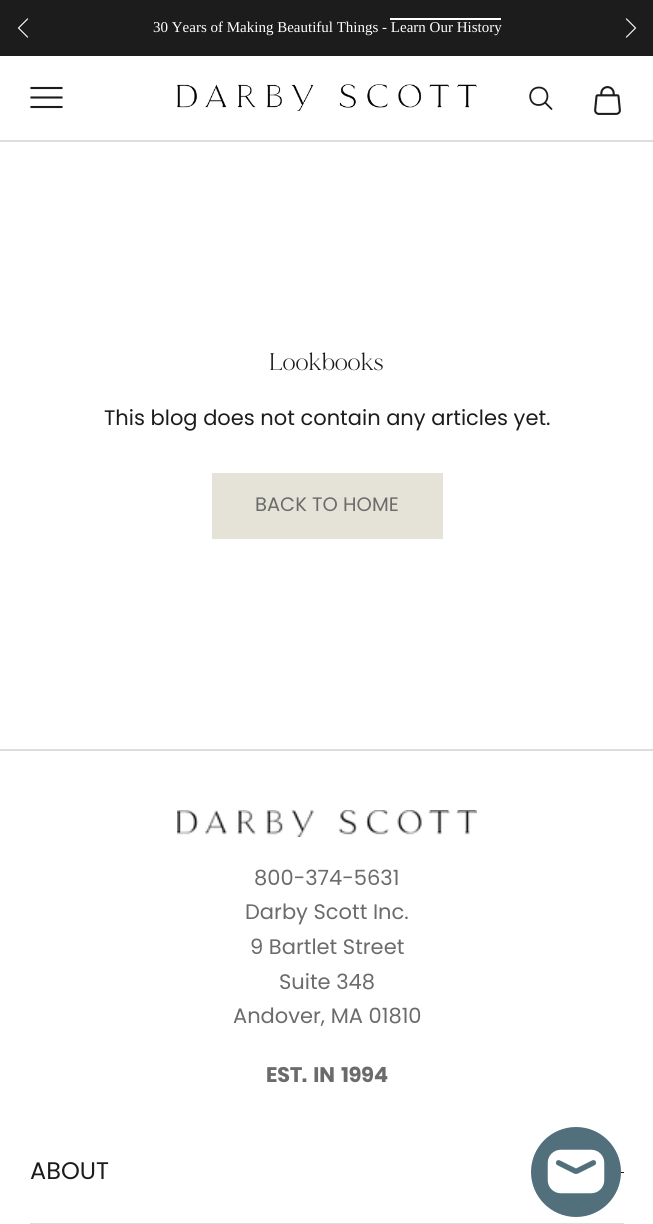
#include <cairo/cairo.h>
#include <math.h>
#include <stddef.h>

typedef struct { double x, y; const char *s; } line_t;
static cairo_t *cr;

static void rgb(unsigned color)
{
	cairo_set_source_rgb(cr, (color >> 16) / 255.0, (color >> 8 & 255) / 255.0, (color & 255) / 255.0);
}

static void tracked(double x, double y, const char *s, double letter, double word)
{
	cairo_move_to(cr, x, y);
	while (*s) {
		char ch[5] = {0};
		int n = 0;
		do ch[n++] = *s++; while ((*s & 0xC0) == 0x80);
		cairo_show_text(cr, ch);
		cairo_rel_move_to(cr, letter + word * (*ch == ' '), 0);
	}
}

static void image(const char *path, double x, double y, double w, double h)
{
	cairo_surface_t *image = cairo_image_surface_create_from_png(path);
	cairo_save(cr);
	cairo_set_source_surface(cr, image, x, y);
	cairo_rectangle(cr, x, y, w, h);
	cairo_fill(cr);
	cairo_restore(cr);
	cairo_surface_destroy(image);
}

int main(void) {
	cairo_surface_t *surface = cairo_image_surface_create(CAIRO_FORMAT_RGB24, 653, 1224);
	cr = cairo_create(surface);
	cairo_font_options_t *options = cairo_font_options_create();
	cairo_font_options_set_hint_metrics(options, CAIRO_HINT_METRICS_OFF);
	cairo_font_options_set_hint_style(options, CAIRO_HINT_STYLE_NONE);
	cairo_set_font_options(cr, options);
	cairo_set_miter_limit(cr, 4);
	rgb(0xffffff);
	cairo_paint(cr);
	rgb(0x1c1c1c);
	cairo_rectangle(cr, 0, 0, 653, 56);
	cairo_fill(cr);
	cairo_new_path(cr);
	cairo_move_to(cr, 27.5, 19);
	cairo_line_to(cr, 18.5, 28);
	cairo_line_to(cr, 27.5, 37);
	rgb(0xffffff);
	cairo_set_line_width(cr, 1.1);
	cairo_set_line_cap(cr, CAIRO_LINE_CAP_SQUARE);
	cairo_stroke(cr);
	cairo_rectangle(cr, 390, 18, 111, 2);
	cairo_fill(cr);
	cairo_new_path(cr);
	cairo_move_to(cr, 626.5, 37);
	cairo_line_to(cr, 635.5, 28);
	cairo_line_to(cr, 626.5, 19);
	cairo_stroke(cr);
	rgb(0xdddddd);
	cairo_rectangle(cr, 0, 140, 653, 2);
	cairo_fill(cr);
	cairo_new_path(cr);
	cairo_move_to(cr, 31.5, 107);
	cairo_line_to(cr, 61.5, 107);
	cairo_move_to(cr, 31.5, 97.5);
	cairo_line_to(cr, 61.5, 97.5);
	cairo_move_to(cr, 31.5, 88);
	cairo_line_to(cr, 61.5, 88);
	rgb(0x1c1c1c);
	cairo_set_line_width(cr, 2.1);
	cairo_stroke(cr);
	image("img/1.png", 177, 84, 300, 27);
	cairo_new_path(cr);
	cairo_move_to(cr, 539, 87.5);
	cairo_curve_to(cr, 527, 87.5, 527.5, 105.5, 539, 105);
	cairo_curve_to(cr, 550.5, 104.5, 550, 87.5, 539, 87.5);
	cairo_close_path(cr);
	cairo_set_line_width(cr, 1.8);
	cairo_set_line_cap(cr, CAIRO_LINE_CAP_BUTT);
	cairo_stroke(cr);
	cairo_new_path(cr);
	cairo_move_to(cr, 545.5, 103);
	cairo_line_to(cr, 551.5, 109);
	cairo_set_line_cap(cr, CAIRO_LINE_CAP_ROUND);
	cairo_stroke(cr);
	image("img/2.png", 594, 86, 27, 29);
	rgb(0xe5e3d7);
	cairo_rectangle(cr, 213, 474, 229, 64);
	cairo_fill_preserve(cr);
	cairo_set_line_width(cr, 2);
	cairo_set_line_cap(cr, CAIRO_LINE_CAP_BUTT);
	cairo_stroke(cr);
	rgb(0xdddddd);
	cairo_rectangle(cr, 0, 749, 653, 2);
	cairo_fill(cr);
	image("img/3.png", 177, 810, 300, 27);
	cairo_rectangle(cr, 30, 1223, 594, 1);
	cairo_fill(cr);
	rgb(0x1c1c1c);
	cairo_rectangle(cr, 620, 1172, 4, 1);
	cairo_fill(cr);
	rgb(0x52707b);
	cairo_arc(cr, 576, 1172, 45, 0, 2 * M_PI);
	cairo_fill(cr);
	image("img/4.png", 547, 1149, 58, 45);
	cairo_select_font_face(cr, "Liberation Serif", CAIRO_FONT_SLANT_NORMAL, CAIRO_FONT_WEIGHT_NORMAL);
	cairo_set_font_size(cr, 15);
	rgb(0xffffff);
	cairo_move_to(cr, 153, 32);
	cairo_show_text(cr, "30 Years of Making Beautiful Things - Learn Our History");
	cairo_select_font_face(cr, "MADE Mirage", CAIRO_FONT_SLANT_NORMAL, CAIRO_FONT_WEIGHT_NORMAL);
	cairo_set_font_size(cr, 24);
	rgb(0x1c1c1c);
	cairo_move_to(cr, 269, 370);
	cairo_show_text(cr, "Lookbooks");
	cairo_select_font_face(cr, "Poppins", CAIRO_FONT_SLANT_NORMAL, CAIRO_FONT_WEIGHT_NORMAL);
	cairo_set_font_size(cr, 21);
	cairo_move_to(cr, 104, 425);
	cairo_show_text(cr, "This blog does not contain any articles yet.");
	cairo_set_font_size(cr, 19.5);
	rgb(0x6b6b6b);
	cairo_move_to(cr, 255, 511);
	cairo_show_text(cr, "BACK TO HOME");
	cairo_set_font_size(cr, 21);
	{
		static const line_t items[] = {
			{254, 885, "800-374-5631"},
			{245, 919, "Darby Scott Inc."},
			{250, 954, "9 Bartlet Street"},
			{279, 989, "Suite 348"},
			{233, 1023, "Andover, MA 01810"},
		};
		for (size_t i = 0; i < sizeof items / sizeof *items; i++) {
			cairo_move_to(cr, items[i].x, items[i].y);
			cairo_show_text(cr, items[i].s);
		}
	}
	cairo_select_font_face(cr, "Poppins", CAIRO_FONT_SLANT_NORMAL, CAIRO_FONT_WEIGHT_BOLD);
	tracked(266, 1082, "EST. IN 1994", 0, 2);
	cairo_select_font_face(cr, "Poppins", CAIRO_FONT_SLANT_NORMAL, CAIRO_FONT_WEIGHT_NORMAL);
	cairo_set_font_size(cr, 24);
	rgb(0x1c1c1c);
	cairo_move_to(cr, 30, 1179);
	cairo_show_text(cr, "ABOUT");
	cairo_surface_write_to_png(surface, "page.png");
	cairo_font_options_destroy(options);
	cairo_destroy(cr);
	cairo_surface_destroy(surface);
	return 0;
}
